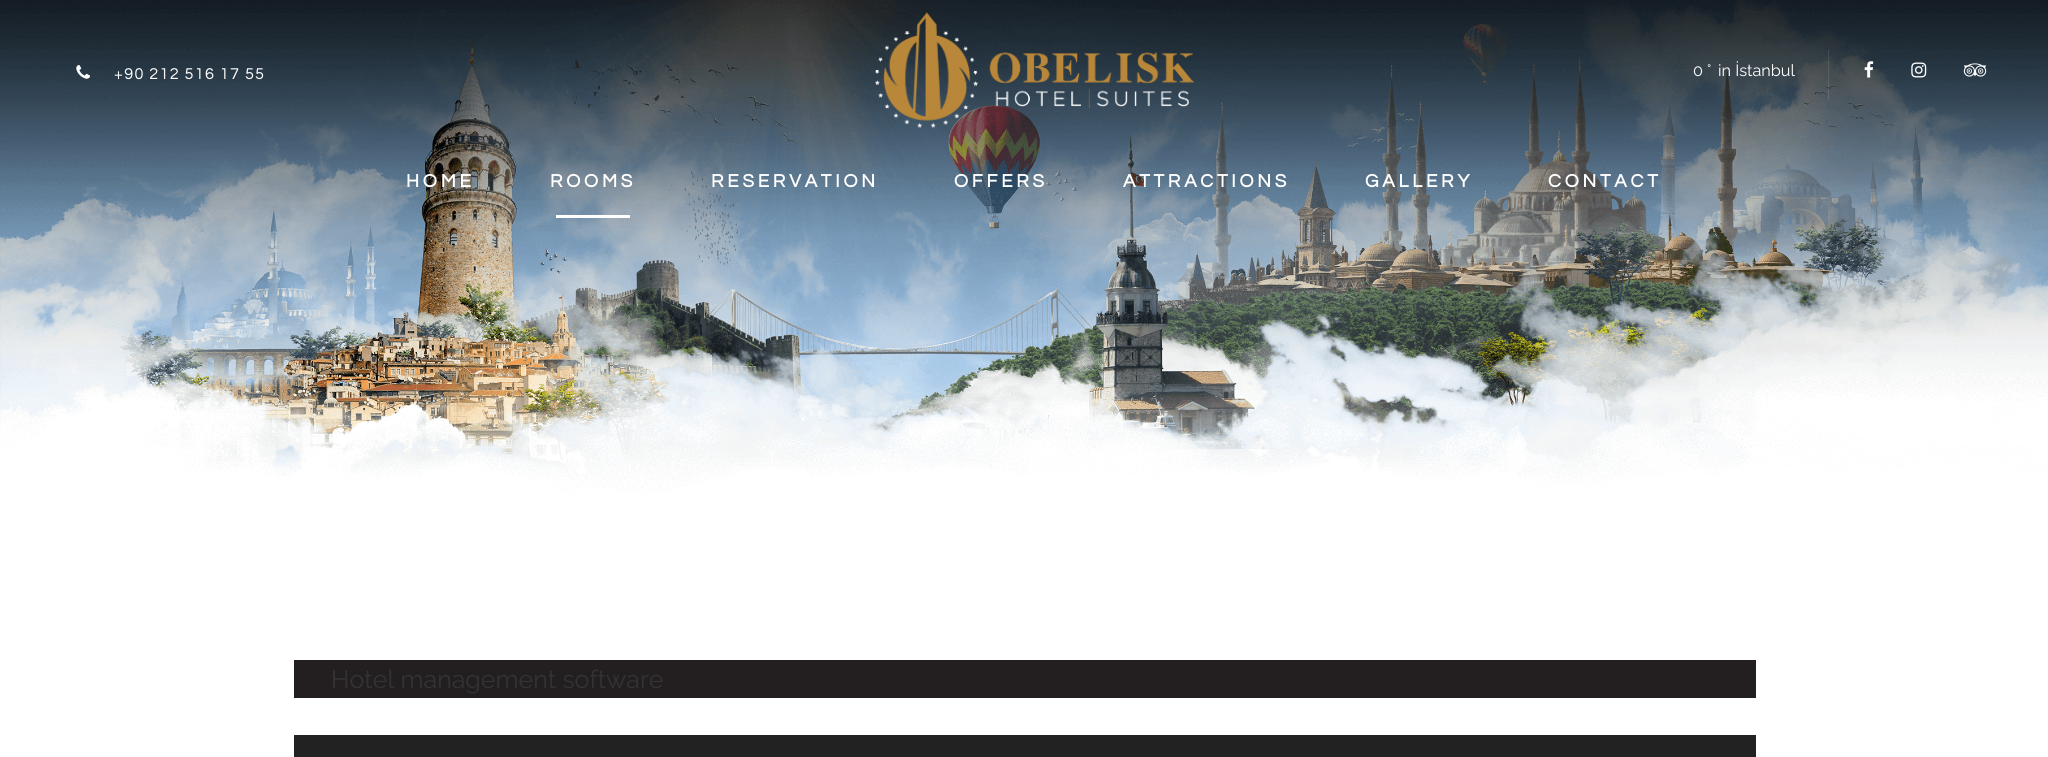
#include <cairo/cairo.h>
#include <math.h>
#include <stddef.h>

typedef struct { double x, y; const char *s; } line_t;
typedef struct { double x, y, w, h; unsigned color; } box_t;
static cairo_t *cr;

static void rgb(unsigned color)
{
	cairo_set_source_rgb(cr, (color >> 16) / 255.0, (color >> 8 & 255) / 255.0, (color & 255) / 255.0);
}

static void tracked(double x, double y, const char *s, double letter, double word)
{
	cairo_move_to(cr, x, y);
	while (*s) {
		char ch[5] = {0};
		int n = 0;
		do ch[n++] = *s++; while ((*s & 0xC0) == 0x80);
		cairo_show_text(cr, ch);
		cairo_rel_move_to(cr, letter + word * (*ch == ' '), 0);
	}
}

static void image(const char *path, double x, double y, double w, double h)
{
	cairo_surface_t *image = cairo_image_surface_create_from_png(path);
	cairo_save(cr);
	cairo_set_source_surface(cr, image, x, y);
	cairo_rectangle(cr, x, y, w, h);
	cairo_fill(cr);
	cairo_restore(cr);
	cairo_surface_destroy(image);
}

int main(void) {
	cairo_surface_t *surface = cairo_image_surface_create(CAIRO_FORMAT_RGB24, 2048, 757);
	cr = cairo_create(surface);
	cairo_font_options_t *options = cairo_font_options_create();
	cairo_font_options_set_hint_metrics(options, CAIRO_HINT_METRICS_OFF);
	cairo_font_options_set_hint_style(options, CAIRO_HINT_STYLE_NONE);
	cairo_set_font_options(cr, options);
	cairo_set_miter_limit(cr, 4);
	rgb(0xffffff);
	cairo_paint(cr);
	image("img/6.png", 0, 0, 2048, 585);
	image("img/1.png", 76, 65, 14, 14);
	image("img/2.png", 875, 12, 319, 116);
	cairo_set_source_rgba(cr, 1, 1, 1, 0.1);
	cairo_rectangle(cr, 1828, 50, 1, 50);
	cairo_fill(cr);
	image("img/3.png", 1864, 61, 10, 17);
	image("img/4.png", 1911, 62, 16, 16);
	image("img/5.png", 1963, 63, 24, 14);
	{
		static const box_t items[] = {
			{556, 215, 74, 3, 0xffffff},
			{294, 660, 1462, 38, 0x231f20},
			{294, 735, 1462, 22, 0x222222},
		};
		for (size_t i = 0; i < sizeof items / sizeof *items; i++) {
			rgb(items[i].color);
			cairo_rectangle(cr, items[i].x, items[i].y, items[i].w, items[i].h);
			cairo_fill(cr);
		}
	}
	cairo_select_font_face(cr, "Questrial", CAIRO_FONT_SLANT_NORMAL, CAIRO_FONT_WEIGHT_NORMAL);
	cairo_set_font_size(cr, 16.25);
	rgb(0xffffff);
	tracked(114, 79, "+90 212 516 17 55", 1.25, 0);
	cairo_select_font_face(cr, "Raleway", CAIRO_FONT_SLANT_NORMAL, CAIRO_FONT_WEIGHT_NORMAL);
	cairo_move_to(cr, 1693, 76);
	cairo_show_text(cr, "0 °");
	cairo_move_to(cr, 1718, 76);
	cairo_show_text(cr, "in İstanbul");
	cairo_select_font_face(cr, "Questrial", CAIRO_FONT_SLANT_NORMAL, CAIRO_FONT_WEIGHT_BOLD);
	cairo_set_font_size(cr, 18.75);
	{
		static const line_t items[] = {
			{406, 187, "HOME"},
			{550, 187, "ROOMS"},
			{711, 187, "RESERVATION"},
			{954, 187, "OFFERS"},
			{1123, 187, "ATTRACTIONS"},
			{1365, 187, "GALLERY"},
			{1548, 187, "CONTACT"},
		};
		for (size_t i = 0; i < sizeof items / sizeof *items; i++) {
			tracked(items[i].x, items[i].y, items[i].s, 3.75, 0);
		}
	}
	cairo_select_font_face(cr, "Raleway", CAIRO_FONT_SLANT_NORMAL, CAIRO_FONT_WEIGHT_NORMAL);
	cairo_set_font_size(cr, 25);
	rgb(0x333333);
	cairo_move_to(cr, 331, 688);
	cairo_show_text(cr, "Hotel management software");
	cairo_surface_write_to_png(surface, "page.png");
	cairo_font_options_destroy(options);
	cairo_destroy(cr);
	cairo_surface_destroy(surface);
	return 0;
}
